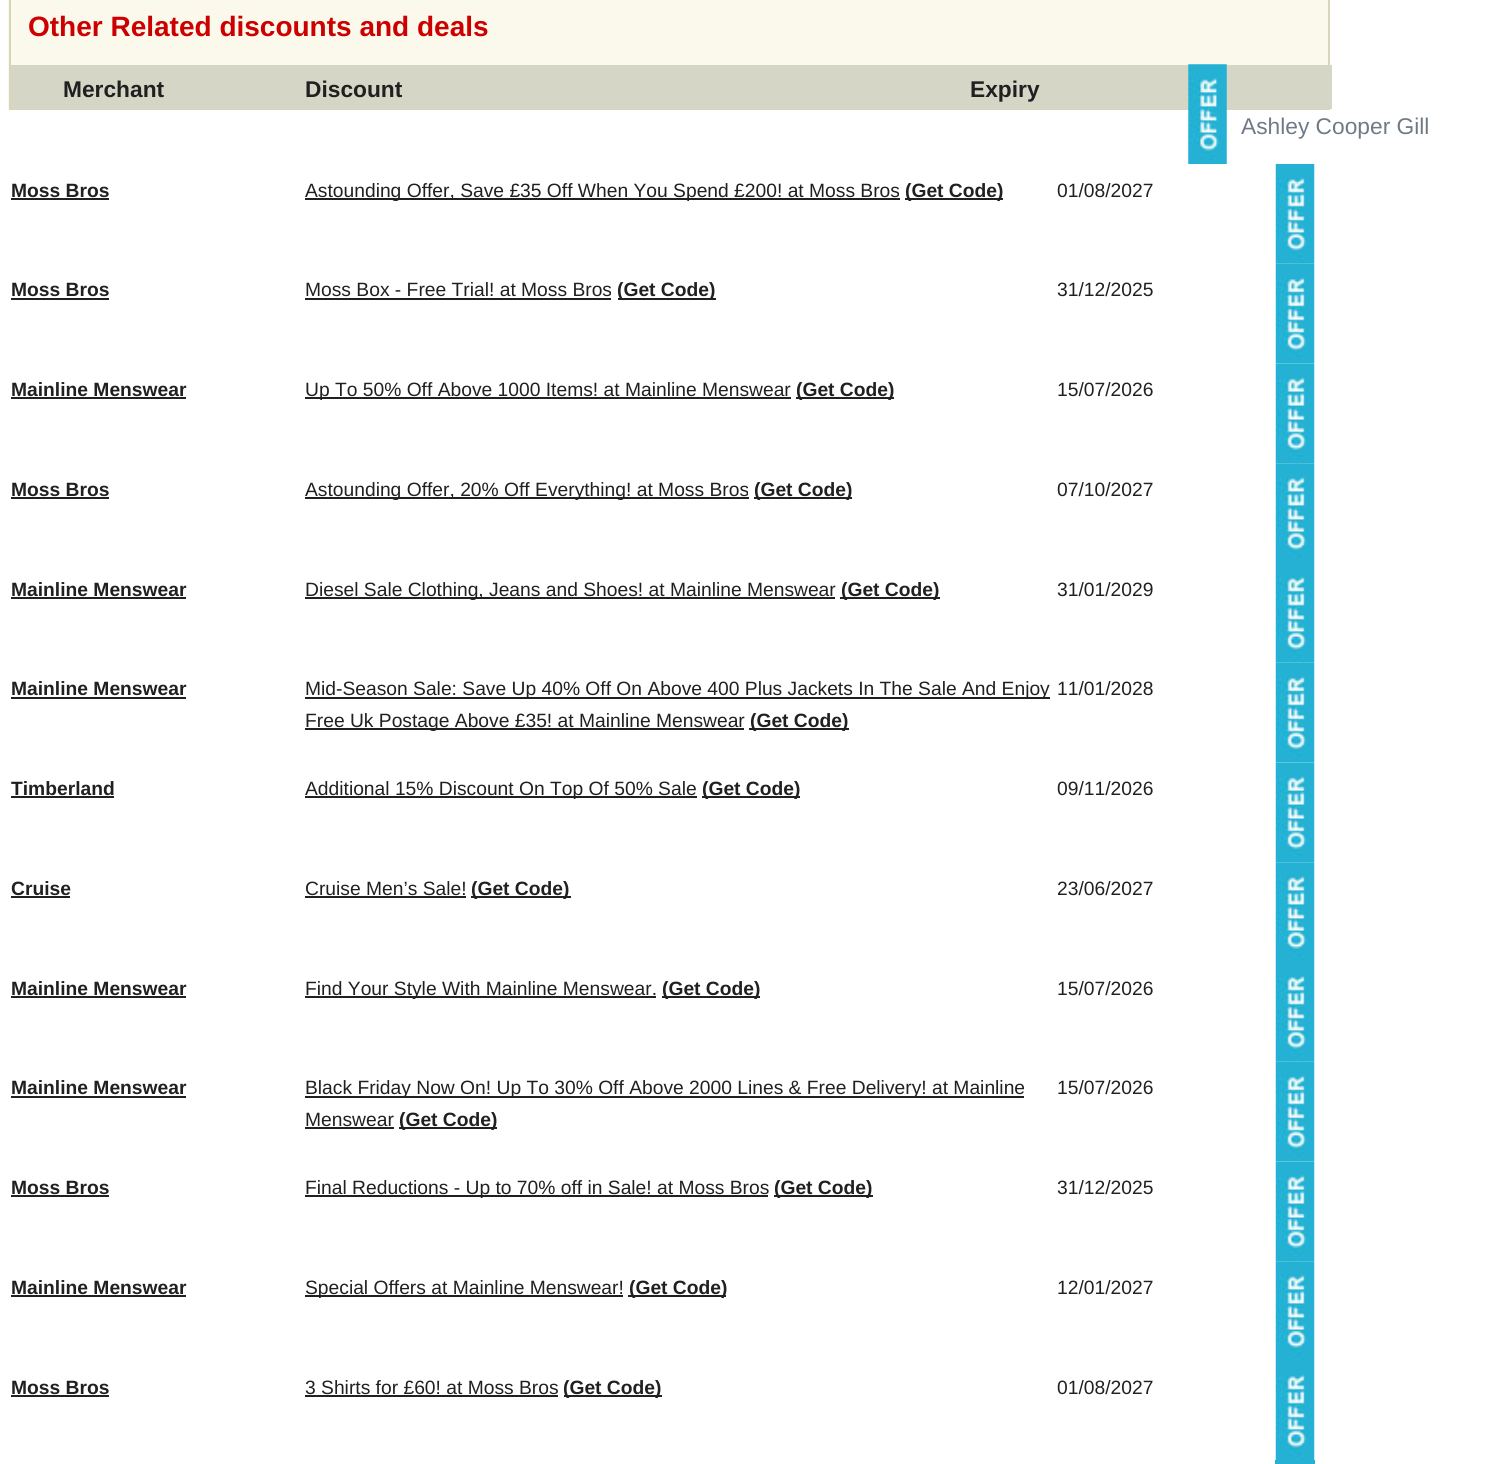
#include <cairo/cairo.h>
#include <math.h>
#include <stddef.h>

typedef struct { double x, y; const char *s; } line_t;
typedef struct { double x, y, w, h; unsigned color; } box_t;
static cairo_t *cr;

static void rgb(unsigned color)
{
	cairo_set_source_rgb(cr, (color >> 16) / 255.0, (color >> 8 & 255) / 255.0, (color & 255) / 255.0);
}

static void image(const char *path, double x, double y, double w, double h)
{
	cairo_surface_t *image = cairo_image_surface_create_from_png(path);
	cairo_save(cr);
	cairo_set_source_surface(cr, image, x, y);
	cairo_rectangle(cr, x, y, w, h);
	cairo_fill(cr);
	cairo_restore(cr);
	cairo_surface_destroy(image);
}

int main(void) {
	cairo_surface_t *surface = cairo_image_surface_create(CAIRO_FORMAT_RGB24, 1500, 1464);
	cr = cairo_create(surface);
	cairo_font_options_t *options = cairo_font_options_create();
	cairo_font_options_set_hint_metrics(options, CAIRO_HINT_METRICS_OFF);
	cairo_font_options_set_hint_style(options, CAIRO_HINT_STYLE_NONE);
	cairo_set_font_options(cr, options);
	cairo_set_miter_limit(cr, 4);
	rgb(0xffffff);
	cairo_paint(cr);
	rgb(0xfbf8ec);
	cairo_rectangle(cr, 8, 0, 1320, 110);
	cairo_fill(cr);
	cairo_rectangle(cr, 10, -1, 1319, 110);
	rgb(0xd9d4bc);
	cairo_stroke(cr);
	rgb(0xd5d6c6);
	cairo_rectangle(cr, 11, 65, 1321, 44);
	cairo_fill(cr);
	image("img/1.png", 1188, 64, 39, 100);
	{
		static const box_t items[] = {
			{11, 198, 98, 2, 0x202020},
			{305, 198, 595, 2, 0x202020},
			{905, 198, 98, 2, 0x202020},
		};
		for (size_t i = 0; i < sizeof items / sizeof *items; i++) {
			rgb(items[i].color);
			cairo_rectangle(cr, items[i].x, items[i].y, items[i].w, items[i].h);
			cairo_fill(cr);
		}
	}
	image("img/2.png", 1275, 164, 40, 100);
	{
		static const box_t items[] = {
			{11, 298, 98, 2, 0x202020},
			{305, 298, 306, 2, 0x202020},
			{618, 298, 98, 2, 0x202020},
		};
		for (size_t i = 0; i < sizeof items / sizeof *items; i++) {
			rgb(items[i].color);
			cairo_rectangle(cr, items[i].x, items[i].y, items[i].w, items[i].h);
			cairo_fill(cr);
		}
	}
	image("img/3.png", 1275, 263, 40, 101);
	{
		static const box_t items[] = {
			{11, 397, 175, 2, 0x202020},
			{305, 397, 486, 2, 0x202020},
			{796, 397, 98, 2, 0x202020},
		};
		for (size_t i = 0; i < sizeof items / sizeof *items; i++) {
			rgb(items[i].color);
			cairo_rectangle(cr, items[i].x, items[i].y, items[i].w, items[i].h);
			cairo_fill(cr);
		}
	}
	image("img/4.png", 1275, 363, 40, 101);
	{
		static const box_t items[] = {
			{11, 497, 98, 2, 0x202020},
			{305, 497, 444, 2, 0x202020},
			{754, 497, 98, 2, 0x202020},
		};
		for (size_t i = 0; i < sizeof items / sizeof *items; i++) {
			rgb(items[i].color);
			cairo_rectangle(cr, items[i].x, items[i].y, items[i].w, items[i].h);
			cairo_fill(cr);
		}
	}
	image("img/5.png", 1275, 463, 40, 100);
	{
		static const box_t items[] = {
			{11, 597, 175, 2, 0x202020},
			{305, 597, 530, 2, 0x202020},
			{840, 597, 100, 2, 0x202020},
		};
		for (size_t i = 0; i < sizeof items / sizeof *items; i++) {
			rgb(items[i].color);
			cairo_rectangle(cr, items[i].x, items[i].y, items[i].w, items[i].h);
			cairo_fill(cr);
		}
	}
	image("img/2.png", 1275, 563, 40, 100);
	{
		static const box_t items[] = {
			{11, 697, 175, 2, 0x202020},
			{305, 697, 745, 2, 0x202020},
			{305, 728, 439, 2, 0x202020},
			{749, 728, 100, 2, 0x202020},
		};
		for (size_t i = 0; i < sizeof items / sizeof *items; i++) {
			rgb(items[i].color);
			cairo_rectangle(cr, items[i].x, items[i].y, items[i].w, items[i].h);
			cairo_fill(cr);
		}
	}
	image("img/3.png", 1275, 662, 40, 101);
	{
		static const box_t items[] = {
			{11, 796, 103, 2, 0x202020},
			{305, 796, 392, 2, 0x202020},
			{702, 796, 98, 2, 0x202020},
		};
		for (size_t i = 0; i < sizeof items / sizeof *items; i++) {
			rgb(items[i].color);
			cairo_rectangle(cr, items[i].x, items[i].y, items[i].w, items[i].h);
			cairo_fill(cr);
		}
	}
	image("img/6.png", 1275, 762, 40, 101);
	{
		static const box_t items[] = {
			{11, 896, 59, 2, 0x202020},
			{305, 896, 161, 2, 0x202020},
			{471, 896, 100, 2, 0x202020},
		};
		for (size_t i = 0; i < sizeof items / sizeof *items; i++) {
			rgb(items[i].color);
			cairo_rectangle(cr, items[i].x, items[i].y, items[i].w, items[i].h);
			cairo_fill(cr);
		}
	}
	image("img/5.png", 1275, 862, 40, 100);
	{
		static const box_t items[] = {
			{11, 996, 175, 2, 0x202020},
			{305, 996, 351, 2, 0x202020},
			{662, 996, 98, 2, 0x202020},
		};
		for (size_t i = 0; i < sizeof items / sizeof *items; i++) {
			rgb(items[i].color);
			cairo_rectangle(cr, items[i].x, items[i].y, items[i].w, items[i].h);
			cairo_fill(cr);
		}
	}
	image("img/2.png", 1275, 962, 40, 100);
	{
		static const box_t items[] = {
			{11, 1096, 175, 2, 0x202020},
			{305, 1096, 719, 2, 0x202020},
			{305, 1127, 89, 2, 0x202020},
			{399, 1127, 98, 2, 0x202020},
		};
		for (size_t i = 0; i < sizeof items / sizeof *items; i++) {
			rgb(items[i].color);
			cairo_rectangle(cr, items[i].x, items[i].y, items[i].w, items[i].h);
			cairo_fill(cr);
		}
	}
	image("img/3.png", 1275, 1061, 40, 101);
	{
		static const box_t items[] = {
			{11, 1195, 98, 2, 0x202020},
			{305, 1195, 463, 2, 0x202020},
			{774, 1195, 99, 2, 0x202020},
		};
		for (size_t i = 0; i < sizeof items / sizeof *items; i++) {
			rgb(items[i].color);
			cairo_rectangle(cr, items[i].x, items[i].y, items[i].w, items[i].h);
			cairo_fill(cr);
		}
	}
	image("img/4.png", 1275, 1161, 40, 101);
	{
		static const box_t items[] = {
			{11, 1295, 175, 2, 0x202020},
			{305, 1295, 318, 2, 0x202020},
			{628, 1295, 98, 2, 0x202020},
		};
		for (size_t i = 0; i < sizeof items / sizeof *items; i++) {
			rgb(items[i].color);
			cairo_rectangle(cr, items[i].x, items[i].y, items[i].w, items[i].h);
			cairo_fill(cr);
		}
	}
	image("img/5.png", 1275, 1261, 40, 100);
	{
		static const box_t items[] = {
			{11, 1395, 98, 2, 0x202020},
			{305, 1395, 253, 2, 0x202020},
			{564, 1395, 98, 2, 0x202020},
		};
		for (size_t i = 0; i < sizeof items / sizeof *items; i++) {
			rgb(items[i].color);
			cairo_rectangle(cr, items[i].x, items[i].y, items[i].w, items[i].h);
			cairo_fill(cr);
		}
	}
	image("img/7.png", 1275, 1361, 40, 99);
	rgb(0x25b1d4);
	cairo_rectangle(cr, 1275, 1460, 40, 4);
	cairo_fill(cr);
	cairo_select_font_face(cr, "Liberation Sans", CAIRO_FONT_SLANT_NORMAL, CAIRO_FONT_WEIGHT_BOLD);
	cairo_set_font_size(cr, 28);
	rgb(0xcc0000);
	cairo_move_to(cr, 28, 36);
	cairo_show_text(cr, "Other Related discounts and deals");
	cairo_set_font_size(cr, 22.75);
	rgb(0x202020);
	{
		static const line_t items[] = {
			{63, 97, "Merchant"},
			{305, 97, "Discount"},
			{970, 97, "Expiry"},
		};
		for (size_t i = 0; i < sizeof items / sizeof *items; i++) {
			cairo_move_to(cr, items[i].x, items[i].y);
			cairo_show_text(cr, items[i].s);
		}
	}
	cairo_set_font_size(cr, 19.25);
	cairo_move_to(cr, 11, 197);
	cairo_show_text(cr, "Moss Bros");
	cairo_select_font_face(cr, "Liberation Sans", CAIRO_FONT_SLANT_NORMAL, CAIRO_FONT_WEIGHT_NORMAL);
	cairo_move_to(cr, 305, 197);
	cairo_show_text(cr, "Astounding Offer, Save £35 Off When You Spend £200! at Moss Bros");
	cairo_select_font_face(cr, "Liberation Sans", CAIRO_FONT_SLANT_NORMAL, CAIRO_FONT_WEIGHT_BOLD);
	cairo_move_to(cr, 905, 197);
	cairo_show_text(cr, "(Get Code)");
	cairo_select_font_face(cr, "Liberation Sans", CAIRO_FONT_SLANT_NORMAL, CAIRO_FONT_WEIGHT_NORMAL);
	cairo_move_to(cr, 1057, 197);
	cairo_show_text(cr, "01/08/2027");
	cairo_select_font_face(cr, "Liberation Sans", CAIRO_FONT_SLANT_NORMAL, CAIRO_FONT_WEIGHT_BOLD);
	cairo_move_to(cr, 11, 296);
	cairo_show_text(cr, "Moss Bros");
	cairo_select_font_face(cr, "Liberation Sans", CAIRO_FONT_SLANT_NORMAL, CAIRO_FONT_WEIGHT_NORMAL);
	cairo_move_to(cr, 305, 296);
	cairo_show_text(cr, "Moss Box - Free Trial! at Moss Bros");
	cairo_select_font_face(cr, "Liberation Sans", CAIRO_FONT_SLANT_NORMAL, CAIRO_FONT_WEIGHT_BOLD);
	cairo_move_to(cr, 617, 296);
	cairo_show_text(cr, "(Get Code)");
	cairo_select_font_face(cr, "Liberation Sans", CAIRO_FONT_SLANT_NORMAL, CAIRO_FONT_WEIGHT_NORMAL);
	cairo_move_to(cr, 1057, 296);
	cairo_show_text(cr, "31/12/2025");
	cairo_select_font_face(cr, "Liberation Sans", CAIRO_FONT_SLANT_NORMAL, CAIRO_FONT_WEIGHT_BOLD);
	cairo_move_to(cr, 11, 396);
	cairo_show_text(cr, "Mainline Menswear");
	cairo_select_font_face(cr, "Liberation Sans", CAIRO_FONT_SLANT_NORMAL, CAIRO_FONT_WEIGHT_NORMAL);
	cairo_move_to(cr, 305, 396);
	cairo_show_text(cr, "Up To 50% Off Above 1000 Items! at Mainline Menswear");
	cairo_select_font_face(cr, "Liberation Sans", CAIRO_FONT_SLANT_NORMAL, CAIRO_FONT_WEIGHT_BOLD);
	cairo_move_to(cr, 796, 396);
	cairo_show_text(cr, "(Get Code)");
	cairo_select_font_face(cr, "Liberation Sans", CAIRO_FONT_SLANT_NORMAL, CAIRO_FONT_WEIGHT_NORMAL);
	cairo_move_to(cr, 1057, 396);
	cairo_show_text(cr, "15/07/2026");
	cairo_select_font_face(cr, "Liberation Sans", CAIRO_FONT_SLANT_NORMAL, CAIRO_FONT_WEIGHT_BOLD);
	cairo_move_to(cr, 11, 496);
	cairo_show_text(cr, "Moss Bros");
	cairo_select_font_face(cr, "Liberation Sans", CAIRO_FONT_SLANT_NORMAL, CAIRO_FONT_WEIGHT_NORMAL);
	cairo_move_to(cr, 305, 496);
	cairo_show_text(cr, "Astounding Offer, 20% Off Everything! at Moss Bros");
	cairo_select_font_face(cr, "Liberation Sans", CAIRO_FONT_SLANT_NORMAL, CAIRO_FONT_WEIGHT_BOLD);
	cairo_move_to(cr, 754, 496);
	cairo_show_text(cr, "(Get Code)");
	cairo_select_font_face(cr, "Liberation Sans", CAIRO_FONT_SLANT_NORMAL, CAIRO_FONT_WEIGHT_NORMAL);
	cairo_move_to(cr, 1057, 496);
	cairo_show_text(cr, "07/10/2027");
	cairo_select_font_face(cr, "Liberation Sans", CAIRO_FONT_SLANT_NORMAL, CAIRO_FONT_WEIGHT_BOLD);
	cairo_move_to(cr, 11, 596);
	cairo_show_text(cr, "Mainline Menswear");
	cairo_select_font_face(cr, "Liberation Sans", CAIRO_FONT_SLANT_NORMAL, CAIRO_FONT_WEIGHT_NORMAL);
	cairo_move_to(cr, 305, 596);
	cairo_show_text(cr, "Diesel Sale Clothing, Jeans and Shoes! at Mainline Menswear");
	cairo_select_font_face(cr, "Liberation Sans", CAIRO_FONT_SLANT_NORMAL, CAIRO_FONT_WEIGHT_BOLD);
	cairo_move_to(cr, 841, 596);
	cairo_show_text(cr, "(Get Code)");
	cairo_select_font_face(cr, "Liberation Sans", CAIRO_FONT_SLANT_NORMAL, CAIRO_FONT_WEIGHT_NORMAL);
	cairo_move_to(cr, 1057, 596);
	cairo_show_text(cr, "31/01/2029");
	cairo_select_font_face(cr, "Liberation Sans", CAIRO_FONT_SLANT_NORMAL, CAIRO_FONT_WEIGHT_BOLD);
	cairo_move_to(cr, 11, 695);
	cairo_show_text(cr, "Mainline Menswear");
	cairo_select_font_face(cr, "Liberation Sans", CAIRO_FONT_SLANT_NORMAL, CAIRO_FONT_WEIGHT_NORMAL);
	cairo_move_to(cr, 305, 695);
	cairo_show_text(cr, "Mid-Season Sale: Save Up 40% Off On Above 400 Plus Jackets In The Sale And Enjoy");
	cairo_move_to(cr, 305, 727);
	cairo_show_text(cr, "Free Uk Postage Above £35! at Mainline Menswear");
	cairo_select_font_face(cr, "Liberation Sans", CAIRO_FONT_SLANT_NORMAL, CAIRO_FONT_WEIGHT_BOLD);
	cairo_move_to(cr, 750, 727);
	cairo_show_text(cr, "(Get Code)");
	cairo_select_font_face(cr, "Liberation Sans", CAIRO_FONT_SLANT_NORMAL, CAIRO_FONT_WEIGHT_NORMAL);
	cairo_move_to(cr, 1057, 695);
	cairo_show_text(cr, "11/01/2028");
	cairo_select_font_face(cr, "Liberation Sans", CAIRO_FONT_SLANT_NORMAL, CAIRO_FONT_WEIGHT_BOLD);
	cairo_move_to(cr, 11, 795);
	cairo_show_text(cr, "Timberland");
	cairo_select_font_face(cr, "Liberation Sans", CAIRO_FONT_SLANT_NORMAL, CAIRO_FONT_WEIGHT_NORMAL);
	cairo_move_to(cr, 305, 795);
	cairo_show_text(cr, "Additional 15% Discount On Top Of 50% Sale");
	cairo_select_font_face(cr, "Liberation Sans", CAIRO_FONT_SLANT_NORMAL, CAIRO_FONT_WEIGHT_BOLD);
	cairo_move_to(cr, 702, 795);
	cairo_show_text(cr, "(Get Code)");
	cairo_select_font_face(cr, "Liberation Sans", CAIRO_FONT_SLANT_NORMAL, CAIRO_FONT_WEIGHT_NORMAL);
	cairo_move_to(cr, 1057, 795);
	cairo_show_text(cr, "09/11/2026");
	cairo_select_font_face(cr, "Liberation Sans", CAIRO_FONT_SLANT_NORMAL, CAIRO_FONT_WEIGHT_BOLD);
	cairo_move_to(cr, 11, 895);
	cairo_show_text(cr, "Cruise");
	cairo_select_font_face(cr, "Liberation Sans", CAIRO_FONT_SLANT_NORMAL, CAIRO_FONT_WEIGHT_NORMAL);
	cairo_move_to(cr, 305, 895);
	cairo_show_text(cr, "Cruise Men’s Sale!");
	cairo_select_font_face(cr, "Liberation Sans", CAIRO_FONT_SLANT_NORMAL, CAIRO_FONT_WEIGHT_BOLD);
	cairo_move_to(cr, 471, 895);
	cairo_show_text(cr, "(Get Code)");
	cairo_select_font_face(cr, "Liberation Sans", CAIRO_FONT_SLANT_NORMAL, CAIRO_FONT_WEIGHT_NORMAL);
	cairo_move_to(cr, 1057, 895);
	cairo_show_text(cr, "23/06/2027");
	cairo_select_font_face(cr, "Liberation Sans", CAIRO_FONT_SLANT_NORMAL, CAIRO_FONT_WEIGHT_BOLD);
	cairo_move_to(cr, 11, 995);
	cairo_show_text(cr, "Mainline Menswear");
	cairo_select_font_face(cr, "Liberation Sans", CAIRO_FONT_SLANT_NORMAL, CAIRO_FONT_WEIGHT_NORMAL);
	cairo_move_to(cr, 305, 995);
	cairo_show_text(cr, "Find Your Style With Mainline Menswear.");
	cairo_select_font_face(cr, "Liberation Sans", CAIRO_FONT_SLANT_NORMAL, CAIRO_FONT_WEIGHT_BOLD);
	cairo_move_to(cr, 662, 995);
	cairo_show_text(cr, "(Get Code)");
	cairo_select_font_face(cr, "Liberation Sans", CAIRO_FONT_SLANT_NORMAL, CAIRO_FONT_WEIGHT_NORMAL);
	cairo_move_to(cr, 1057, 995);
	cairo_show_text(cr, "15/07/2026");
	cairo_select_font_face(cr, "Liberation Sans", CAIRO_FONT_SLANT_NORMAL, CAIRO_FONT_WEIGHT_BOLD);
	cairo_move_to(cr, 11, 1094);
	cairo_show_text(cr, "Mainline Menswear");
	cairo_select_font_face(cr, "Liberation Sans", CAIRO_FONT_SLANT_NORMAL, CAIRO_FONT_WEIGHT_NORMAL);
	cairo_move_to(cr, 305, 1094);
	cairo_show_text(cr, "Black Friday Now On! Up To 30% Off Above 2000 Lines & Free Delivery! at Mainline");
	cairo_move_to(cr, 305, 1126);
	cairo_show_text(cr, "Menswear");
	cairo_select_font_face(cr, "Liberation Sans", CAIRO_FONT_SLANT_NORMAL, CAIRO_FONT_WEIGHT_BOLD);
	cairo_move_to(cr, 399, 1126);
	cairo_show_text(cr, "(Get Code)");
	cairo_select_font_face(cr, "Liberation Sans", CAIRO_FONT_SLANT_NORMAL, CAIRO_FONT_WEIGHT_NORMAL);
	cairo_move_to(cr, 1057, 1094);
	cairo_show_text(cr, "15/07/2026");
	cairo_select_font_face(cr, "Liberation Sans", CAIRO_FONT_SLANT_NORMAL, CAIRO_FONT_WEIGHT_BOLD);
	cairo_move_to(cr, 11, 1194);
	cairo_show_text(cr, "Moss Bros");
	cairo_select_font_face(cr, "Liberation Sans", CAIRO_FONT_SLANT_NORMAL, CAIRO_FONT_WEIGHT_NORMAL);
	cairo_move_to(cr, 305, 1194);
	cairo_show_text(cr, "Final Reductions - Up to 70% off in Sale! at Moss Bros");
	cairo_select_font_face(cr, "Liberation Sans", CAIRO_FONT_SLANT_NORMAL, CAIRO_FONT_WEIGHT_BOLD);
	cairo_move_to(cr, 774, 1194);
	cairo_show_text(cr, "(Get Code)");
	cairo_select_font_face(cr, "Liberation Sans", CAIRO_FONT_SLANT_NORMAL, CAIRO_FONT_WEIGHT_NORMAL);
	cairo_move_to(cr, 1057, 1194);
	cairo_show_text(cr, "31/12/2025");
	cairo_select_font_face(cr, "Liberation Sans", CAIRO_FONT_SLANT_NORMAL, CAIRO_FONT_WEIGHT_BOLD);
	cairo_move_to(cr, 11, 1294);
	cairo_show_text(cr, "Mainline Menswear");
	cairo_select_font_face(cr, "Liberation Sans", CAIRO_FONT_SLANT_NORMAL, CAIRO_FONT_WEIGHT_NORMAL);
	cairo_move_to(cr, 305, 1294);
	cairo_show_text(cr, "Special Offers at Mainline Menswear!");
	cairo_select_font_face(cr, "Liberation Sans", CAIRO_FONT_SLANT_NORMAL, CAIRO_FONT_WEIGHT_BOLD);
	cairo_move_to(cr, 629, 1294);
	cairo_show_text(cr, "(Get Code)");
	cairo_select_font_face(cr, "Liberation Sans", CAIRO_FONT_SLANT_NORMAL, CAIRO_FONT_WEIGHT_NORMAL);
	cairo_move_to(cr, 1057, 1294);
	cairo_show_text(cr, "12/01/2027");
	cairo_select_font_face(cr, "Liberation Sans", CAIRO_FONT_SLANT_NORMAL, CAIRO_FONT_WEIGHT_BOLD);
	cairo_move_to(cr, 11, 1394);
	cairo_show_text(cr, "Moss Bros");
	cairo_select_font_face(cr, "Liberation Sans", CAIRO_FONT_SLANT_NORMAL, CAIRO_FONT_WEIGHT_NORMAL);
	cairo_move_to(cr, 305, 1394);
	cairo_show_text(cr, "3 Shirts for £60! at Moss Bros");
	cairo_select_font_face(cr, "Liberation Sans", CAIRO_FONT_SLANT_NORMAL, CAIRO_FONT_WEIGHT_BOLD);
	cairo_move_to(cr, 563, 1394);
	cairo_show_text(cr, "(Get Code)");
	cairo_select_font_face(cr, "Liberation Sans", CAIRO_FONT_SLANT_NORMAL, CAIRO_FONT_WEIGHT_NORMAL);
	cairo_move_to(cr, 1057, 1394);
	cairo_show_text(cr, "01/08/2027");
	cairo_set_font_size(cr, 22.75);
	rgb(0x707a87);
	cairo_move_to(cr, 1241, 134);
	cairo_show_text(cr, "Ashley Cooper Gill");
	cairo_surface_write_to_png(surface, "page.png");
	cairo_font_options_destroy(options);
	cairo_destroy(cr);
	cairo_surface_destroy(surface);
	return 0;
}
